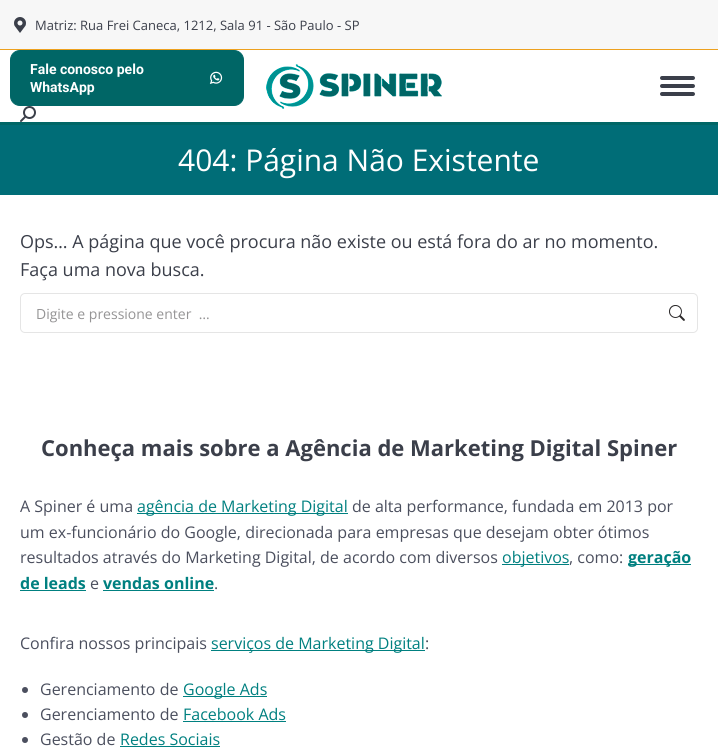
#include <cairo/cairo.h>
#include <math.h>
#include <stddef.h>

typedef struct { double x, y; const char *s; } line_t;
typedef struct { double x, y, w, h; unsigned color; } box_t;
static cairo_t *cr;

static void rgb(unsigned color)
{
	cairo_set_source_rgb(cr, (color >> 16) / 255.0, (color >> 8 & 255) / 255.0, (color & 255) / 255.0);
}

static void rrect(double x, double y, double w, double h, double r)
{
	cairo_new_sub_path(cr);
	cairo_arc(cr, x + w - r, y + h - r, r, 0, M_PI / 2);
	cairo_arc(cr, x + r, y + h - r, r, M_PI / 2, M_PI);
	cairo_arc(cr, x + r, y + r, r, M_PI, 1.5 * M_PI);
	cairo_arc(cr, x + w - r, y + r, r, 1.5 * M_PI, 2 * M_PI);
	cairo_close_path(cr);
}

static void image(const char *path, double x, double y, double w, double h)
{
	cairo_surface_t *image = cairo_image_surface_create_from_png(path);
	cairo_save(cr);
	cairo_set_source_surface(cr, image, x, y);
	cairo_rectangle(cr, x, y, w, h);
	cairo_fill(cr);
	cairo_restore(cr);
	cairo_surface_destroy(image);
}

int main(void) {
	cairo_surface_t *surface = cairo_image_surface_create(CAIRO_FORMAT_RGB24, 718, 756);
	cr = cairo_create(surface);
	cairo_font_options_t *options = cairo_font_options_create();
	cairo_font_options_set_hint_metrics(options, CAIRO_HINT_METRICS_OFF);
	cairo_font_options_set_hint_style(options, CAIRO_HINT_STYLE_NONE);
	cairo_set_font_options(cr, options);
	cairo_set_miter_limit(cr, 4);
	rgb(0xffffff);
	cairo_paint(cr);
	rgb(0x006666);
	cairo_rectangle(cr, 0, 122, 718, 3);
	cairo_fill(cr);
	rgb(0xf7f7f7);
	cairo_rectangle(cr, 0, 0, 718, 49);
	cairo_fill(cr);
	image("img/1.png", 14, 17, 12, 16);
	rgb(0xeda11e);
	cairo_rectangle(cr, 0, 49, 718, 1);
	cairo_fill(cr);
	rgb(0x006666);
	rrect(10.5, 50.5, 233, 55, 9.5);
	cairo_fill_preserve(cr);
	cairo_set_line_width(cr, 1);
	cairo_stroke(cr);
	image("img/2.png", 209, 71, 14, 13);
	image("img/3.png", 20, 106, 16, 16);
	image("img/4.png", 266, 64, 176, 45);
	rgb(0x3b3f4a);
	rrect(660, 76, 35, 4, 2);
	cairo_fill(cr);
	rrect(660, 84, 35, 4, 2);
	cairo_fill(cr);
	rrect(660, 92, 35, 4, 2);
	cairo_fill(cr);
	rgb(0x006d77);
	cairo_rectangle(cr, 0, 125, 718, 70);
	cairo_fill(cr);
	rrect(20.5, 293.5, 677, 39, 4.5);
	rgb(0xe5e5e5);
	cairo_stroke(cr);
	image("img/5.png", 669, 305, 16, 16);
	{
		static const box_t items[] = {
			{137, 513, 211, 1, 0x008080},
			{502, 564, 67, 1, 0x008080},
			{628, 564, 63, 1, 0x008080},
			{20, 590, 66, 1, 0x008080},
			{103, 590, 111, 1, 0x008080},
			{211, 650, 214, 1, 0x008080},
		};
		for (size_t i = 0; i < sizeof items / sizeof *items; i++) {
			rgb(items[i].color);
			cairo_rectangle(cr, items[i].x, items[i].y, items[i].w, items[i].h);
			cairo_fill(cr);
		}
	}
	rgb(0x4b4f5e);
	cairo_arc(cr, 25, 690, 3, 0, 2 * M_PI);
	cairo_fill(cr);
	rgb(0x008080);
	cairo_rectangle(cr, 183, 696, 84, 1);
	cairo_fill(cr);
	rgb(0x4b4f5e);
	cairo_arc(cr, 25, 715, 3, 0, 2 * M_PI);
	cairo_fill(cr);
	rgb(0x008080);
	cairo_rectangle(cr, 183, 721, 103, 1);
	cairo_fill(cr);
	rgb(0x4b4f5e);
	cairo_arc(cr, 25, 740, 3, 0, 2 * M_PI);
	cairo_fill(cr);
	rgb(0x008080);
	cairo_rectangle(cr, 120, 746, 100, 1);
	cairo_fill(cr);
	cairo_select_font_face(cr, "Open Sans", CAIRO_FONT_SLANT_NORMAL, CAIRO_FONT_WEIGHT_NORMAL);
	cairo_set_font_size(cr, 13);
	rgb(0x3b3f4a);
	cairo_move_to(cr, 35, 30);
	cairo_show_text(cr, "Matriz: Rua Frei Caneca, 1212, Sala 91 - São Paulo - SP");
	cairo_select_font_face(cr, "Roboto", CAIRO_FONT_SLANT_NORMAL, CAIRO_FONT_WEIGHT_BOLD);
	cairo_set_font_size(cr, 14);
	rgb(0xffffff);
	cairo_move_to(cr, 30, 74);
	cairo_show_text(cr, "Fale conosco pelo");
	cairo_move_to(cr, 30, 92);
	cairo_show_text(cr, "WhatsApp");
	cairo_select_font_face(cr, "Open Sans", CAIRO_FONT_SLANT_NORMAL, CAIRO_FONT_WEIGHT_NORMAL);
	cairo_set_font_size(cr, 30);
	cairo_move_to(cr, 178, 171);
	cairo_show_text(cr, "404: Página Não Existente");
	cairo_set_font_size(cr, 18);
	rgb(0x3b3f4a);
	cairo_move_to(cr, 20, 248);
	cairo_show_text(cr, "Ops… A página que você procura não existe ou está fora do ar no momento.");
	cairo_move_to(cr, 20, 276);
	cairo_show_text(cr, "Faça uma nova busca.");
	cairo_set_font_size(cr, 14);
	rgb(0x959495);
	cairo_move_to(cr, 36, 319);
	cairo_show_text(cr, "Digite e pressione enter  …");
	cairo_select_font_face(cr, "Open Sans", CAIRO_FONT_SLANT_NORMAL, CAIRO_FONT_WEIGHT_BOLD);
	cairo_set_font_size(cr, 22);
	rgb(0x3b3f4a);
	cairo_move_to(cr, 41, 456);
	cairo_show_text(cr, "Conheça mais sobre a Agência de Marketing Digital Spiner");
	cairo_select_font_face(cr, "Open Sans", CAIRO_FONT_SLANT_NORMAL, CAIRO_FONT_WEIGHT_NORMAL);
	cairo_set_font_size(cr, 16);
	rgb(0x4b4f5e);
	cairo_move_to(cr, 20, 512);
	cairo_show_text(cr, "A Spiner é uma");
	rgb(0x008080);
	cairo_move_to(cr, 137, 512);
	cairo_show_text(cr, "agência de Marketing Digital");
	rgb(0x4b4f5e);
	{
		static const line_t items[] = {
			{352, 512, "de alta performance, fundada em 2013 por"},
			{20, 538, "um ex-funcionário do Google, direcionada para empresas que desejam obter ótimos"},
			{20, 563, "resultados através do Marketing Digital, de acordo com diversos"},
		};
		for (size_t i = 0; i < sizeof items / sizeof *items; i++) {
			cairo_move_to(cr, items[i].x, items[i].y);
			cairo_show_text(cr, items[i].s);
		}
	}
	rgb(0x008080);
	cairo_move_to(cr, 502, 563);
	cairo_show_text(cr, "objetivos");
	rgb(0x4b4f5e);
	cairo_move_to(cr, 569, 563);
	cairo_show_text(cr, ", como:");
	cairo_select_font_face(cr, "Open Sans", CAIRO_FONT_SLANT_NORMAL, CAIRO_FONT_WEIGHT_BOLD);
	rgb(0x008080);
	cairo_move_to(cr, 628, 563);
	cairo_show_text(cr, "geração");
	cairo_move_to(cr, 20, 589);
	cairo_show_text(cr, "de leads");
	cairo_select_font_face(cr, "Open Sans", CAIRO_FONT_SLANT_NORMAL, CAIRO_FONT_WEIGHT_NORMAL);
	rgb(0x4b4f5e);
	cairo_move_to(cr, 90, 589);
	cairo_show_text(cr, "e");
	cairo_select_font_face(cr, "Open Sans", CAIRO_FONT_SLANT_NORMAL, CAIRO_FONT_WEIGHT_BOLD);
	rgb(0x008080);
	cairo_move_to(cr, 103, 589);
	cairo_show_text(cr, "vendas online");
	cairo_select_font_face(cr, "Open Sans", CAIRO_FONT_SLANT_NORMAL, CAIRO_FONT_WEIGHT_NORMAL);
	rgb(0x4b4f5e);
	cairo_move_to(cr, 214, 589);
	cairo_show_text(cr, ".");
	cairo_move_to(cr, 20, 649);
	cairo_show_text(cr, "Confira nossos principais");
	rgb(0x008080);
	cairo_move_to(cr, 211, 649);
	cairo_show_text(cr, "serviços de Marketing Digital");
	rgb(0x4b4f5e);
	cairo_move_to(cr, 425, 649);
	cairo_show_text(cr, ":");
	cairo_move_to(cr, 40, 695);
	cairo_show_text(cr, "Gerenciamento de");
	rgb(0x008080);
	cairo_move_to(cr, 183, 695);
	cairo_show_text(cr, "Google Ads");
	rgb(0x4b4f5e);
	cairo_move_to(cr, 40, 720);
	cairo_show_text(cr, "Gerenciamento de");
	rgb(0x008080);
	cairo_move_to(cr, 183, 720);
	cairo_show_text(cr, "Facebook Ads");
	rgb(0x4b4f5e);
	cairo_move_to(cr, 40, 745);
	cairo_show_text(cr, "Gestão de");
	rgb(0x008080);
	cairo_move_to(cr, 120, 745);
	cairo_show_text(cr, "Redes Sociais");
	cairo_surface_write_to_png(surface, "page.png");
	cairo_font_options_destroy(options);
	cairo_destroy(cr);
	cairo_surface_destroy(surface);
	return 0;
}
